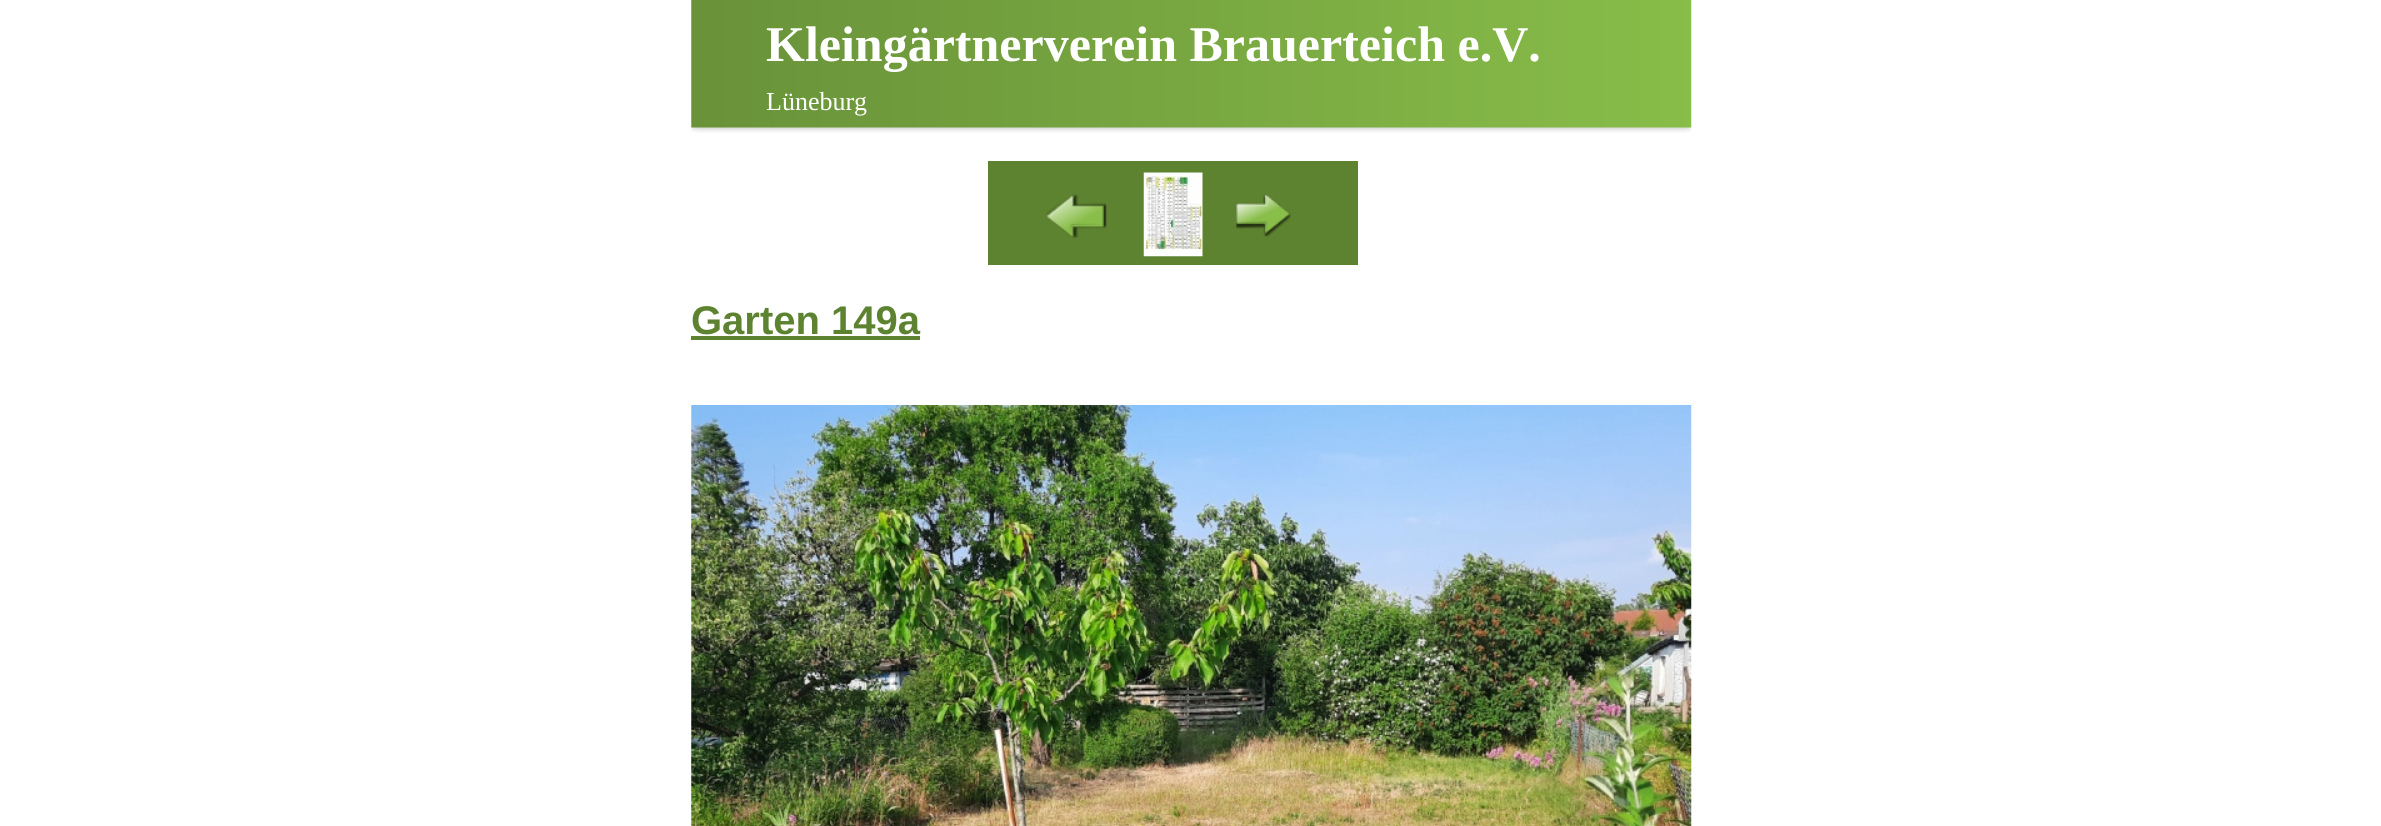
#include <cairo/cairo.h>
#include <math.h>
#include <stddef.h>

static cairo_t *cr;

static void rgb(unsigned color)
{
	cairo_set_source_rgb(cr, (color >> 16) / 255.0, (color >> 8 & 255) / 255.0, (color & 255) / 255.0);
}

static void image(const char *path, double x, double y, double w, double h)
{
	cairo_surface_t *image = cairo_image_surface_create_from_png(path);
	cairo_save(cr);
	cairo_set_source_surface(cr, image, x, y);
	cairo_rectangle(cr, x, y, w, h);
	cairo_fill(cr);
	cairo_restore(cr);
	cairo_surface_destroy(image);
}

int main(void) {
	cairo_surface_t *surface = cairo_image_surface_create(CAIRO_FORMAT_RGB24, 2381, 826);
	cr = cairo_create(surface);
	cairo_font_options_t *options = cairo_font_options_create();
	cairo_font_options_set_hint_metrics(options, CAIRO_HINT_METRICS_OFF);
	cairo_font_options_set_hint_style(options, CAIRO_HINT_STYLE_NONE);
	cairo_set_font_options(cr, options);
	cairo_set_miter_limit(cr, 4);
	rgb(0xffffff);
	cairo_paint(cr);
	image("img/1.png", 691, 0, 1001, 133);
	rgb(0x5d8330);
	cairo_rectangle(cr, 988, 161, 370, 104);
	cairo_fill(cr);
	image("img/2.png", 1046, 194, 61, 44);
	image("img/3.png", 1143, 172, 60, 85);
	image("img/4.png", 1046, 194, 61, 44);
	image("img/5.png", 1236, 194, 55, 43);
	image("img/6.png", 1236, 194, 55, 43);
	cairo_rectangle(cr, 691, 336, 229, 4);
	cairo_fill(cr);
	image("img/7.png", 691, 405, 1001, 421);
	cairo_select_font_face(cr, "Liberation Serif", CAIRO_FONT_SLANT_NORMAL, CAIRO_FONT_WEIGHT_BOLD);
	cairo_set_font_size(cr, 50);
	rgb(0xffffff);
	cairo_move_to(cr, 766, 61);
	cairo_show_text(cr, "Kleingärtnerverein Brauerteich e.V.");
	cairo_select_font_face(cr, "Liberation Serif", CAIRO_FONT_SLANT_NORMAL, CAIRO_FONT_WEIGHT_NORMAL);
	cairo_set_font_size(cr, 26);
	cairo_move_to(cr, 766, 110);
	cairo_show_text(cr, "Lüneburg");
	cairo_select_font_face(cr, "Liberation Sans", CAIRO_FONT_SLANT_NORMAL, CAIRO_FONT_WEIGHT_BOLD);
	cairo_set_font_size(cr, 40);
	rgb(0x5d8330);
	cairo_move_to(cr, 691, 334);
	cairo_show_text(cr, "Garten 149a");
	cairo_surface_write_to_png(surface, "page.png");
	cairo_font_options_destroy(options);
	cairo_destroy(cr);
	cairo_surface_destroy(surface);
	return 0;
}
